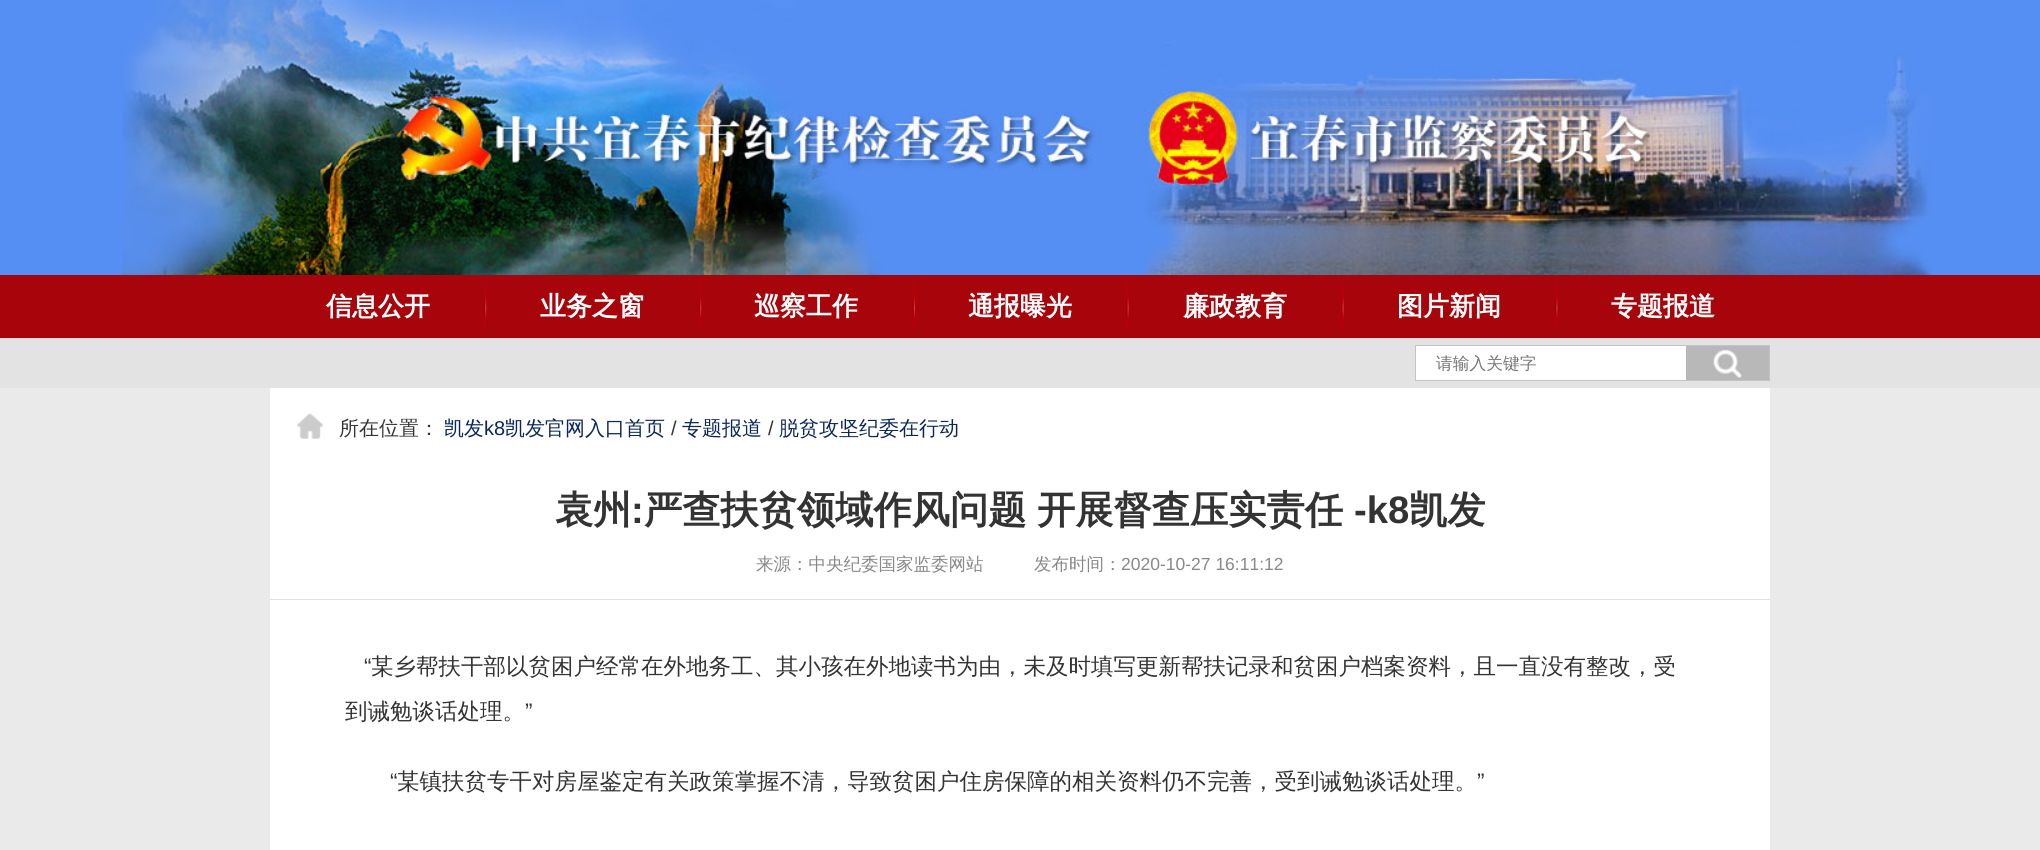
#include <cairo/cairo.h>
#include <math.h>
#include <stddef.h>

typedef struct { double x, y; const char *s; } line_t;
static cairo_t *cr;

static void rgb(unsigned color)
{
	cairo_set_source_rgb(cr, (color >> 16) / 255.0, (color >> 8 & 255) / 255.0, (color & 255) / 255.0);
}

static void tracked(double x, double y, const char *s, double letter, double word)
{
	cairo_move_to(cr, x, y);
	while (*s) {
		char ch[5] = {0};
		int n = 0;
		do ch[n++] = *s++; while ((*s & 0xC0) == 0x80);
		cairo_show_text(cr, ch);
		cairo_rel_move_to(cr, letter + word * (*ch == ' '), 0);
	}
}

static void image(const char *path, double x, double y, double w, double h)
{
	cairo_surface_t *image = cairo_image_surface_create_from_png(path);
	cairo_save(cr);
	cairo_set_source_surface(cr, image, x, y);
	cairo_rectangle(cr, x, y, w, h);
	cairo_fill(cr);
	cairo_restore(cr);
	cairo_surface_destroy(image);
}

int main(void) {
	cairo_surface_t *surface = cairo_image_surface_create(CAIRO_FORMAT_RGB24, 2040, 850);
	cr = cairo_create(surface);
	cairo_font_options_t *options = cairo_font_options_create();
	cairo_font_options_set_hint_metrics(options, CAIRO_HINT_METRICS_OFF);
	cairo_font_options_set_hint_style(options, CAIRO_HINT_STYLE_NONE);
	cairo_set_font_options(cr, options);
	cairo_set_miter_limit(cr, 4);
	rgb(0xebeaea);
	cairo_paint(cr);
	image("img/1.png", 0, 0, 2040, 275);
	rgb(0xa7050b);
	cairo_rectangle(cr, 0, 275, 2040, 63);
	cairo_fill(cr);
	image("img/2.png", 483, 284, 4, 45);
	image("img/2.png", 698, 284, 4, 45);
	image("img/3.png", 912, 284, 3, 45);
	image("img/4.png", 1126, 284, 3, 45);
	image("img/4.png", 1341, 284, 3, 45);
	image("img/5.png", 1555, 284, 3, 45);
	rgb(0xe3e3e3);
	cairo_rectangle(cr, 0, 338, 2040, 50);
	cairo_fill(cr);
	rgb(0xb8b8b8);
	cairo_rectangle(cr, 1686, 346, 83, 34);
	cairo_fill(cr);
	cairo_rectangle(cr, 1415.5, 345.5, 354, 35);
	rgb(0xc3c3c3);
	cairo_set_line_width(cr, 1);
	cairo_stroke(cr);
	rgb(0xffffff);
	cairo_rectangle(cr, 1416, 346, 270, 34);
	cairo_fill(cr);
	image("img/6.png", 1713, 349, 29, 30);
	cairo_rectangle(cr, 270, 388, 1500, 462);
	cairo_fill(cr);
	image("img/7.png", 297, 413, 26, 26);
	rgb(0xe1e1e1);
	cairo_rectangle(cr, 270, 599, 1500, 1);
	cairo_fill(cr);
	cairo_select_font_face(cr, "WenQuanYi Zen Hei", CAIRO_FONT_SLANT_NORMAL, CAIRO_FONT_WEIGHT_BOLD);
	cairo_set_font_size(cr, 26);
	rgb(0xffffff);
	{
		static const line_t items[] = {
			{326, 315, "信息公开"},
			{540, 315, "业务之窗"},
			{754, 315, "巡察工作"},
			{968, 315, "通报曝光"},
			{1183, 315, "廉政教育"},
			{1397, 315, "图片新闻"},
			{1611, 315, "专题报道"},
		};
		for (size_t i = 0; i < sizeof items / sizeof *items; i++) {
			cairo_move_to(cr, items[i].x, items[i].y);
			cairo_show_text(cr, items[i].s);
		}
	}
	cairo_select_font_face(cr, "WenQuanYi Zen Hei Medium", CAIRO_FONT_SLANT_NORMAL, CAIRO_FONT_WEIGHT_NORMAL);
	cairo_set_font_size(cr, 16.75);
	rgb(0x757575);
	cairo_move_to(cr, 1436, 369);
	cairo_show_text(cr, "请输入关键字");
	cairo_set_font_size(cr, 20);
	rgb(0x333333);
	cairo_move_to(cr, 339, 435);
	cairo_show_text(cr, "所在位置：");
	rgb(0x0b265b);
	cairo_move_to(cr, 444, 435);
	cairo_show_text(cr, "凯发");
	cairo_select_font_face(cr, "Liberation Sans", CAIRO_FONT_SLANT_NORMAL, CAIRO_FONT_WEIGHT_NORMAL);
	cairo_move_to(cr, 484, 435);
	cairo_show_text(cr, "k8");
	cairo_select_font_face(cr, "WenQuanYi Zen Hei Medium", CAIRO_FONT_SLANT_NORMAL, CAIRO_FONT_WEIGHT_NORMAL);
	cairo_move_to(cr, 505, 435);
	cairo_show_text(cr, "凯发官网入口首页");
	cairo_select_font_face(cr, "Liberation Sans", CAIRO_FONT_SLANT_NORMAL, CAIRO_FONT_WEIGHT_NORMAL);
	rgb(0x333333);
	cairo_move_to(cr, 671, 435);
	cairo_show_text(cr, "/");
	cairo_select_font_face(cr, "WenQuanYi Zen Hei Medium", CAIRO_FONT_SLANT_NORMAL, CAIRO_FONT_WEIGHT_NORMAL);
	rgb(0x0b265b);
	cairo_move_to(cr, 682, 435);
	cairo_show_text(cr, "专题报道");
	cairo_select_font_face(cr, "Liberation Sans", CAIRO_FONT_SLANT_NORMAL, CAIRO_FONT_WEIGHT_NORMAL);
	rgb(0x333333);
	cairo_move_to(cr, 768, 435);
	cairo_show_text(cr, "/");
	cairo_select_font_face(cr, "WenQuanYi Zen Hei Medium", CAIRO_FONT_SLANT_NORMAL, CAIRO_FONT_WEIGHT_NORMAL);
	rgb(0x0b265b);
	cairo_move_to(cr, 779, 435);
	cairo_show_text(cr, "脱贫攻坚纪委在行动");
	cairo_select_font_face(cr, "WenQuanYi Zen Hei", CAIRO_FONT_SLANT_NORMAL, CAIRO_FONT_WEIGHT_BOLD);
	cairo_set_font_size(cr, 38.25);
	rgb(0x333333);
	cairo_move_to(cr, 555, 523);
	cairo_show_text(cr, "袁州");
	cairo_select_font_face(cr, "Liberation Sans", CAIRO_FONT_SLANT_NORMAL, CAIRO_FONT_WEIGHT_BOLD);
	cairo_move_to(cr, 631, 523);
	cairo_show_text(cr, ":");
	cairo_select_font_face(cr, "WenQuanYi Zen Hei", CAIRO_FONT_SLANT_NORMAL, CAIRO_FONT_WEIGHT_BOLD);
	tracked(644, 523, "严查扶贫领域作风问题 开展督查压实责任", 0, -1);
	cairo_select_font_face(cr, "Liberation Sans", CAIRO_FONT_SLANT_NORMAL, CAIRO_FONT_WEIGHT_BOLD);
	cairo_move_to(cr, 1354, 523);
	cairo_show_text(cr, "-k8");
	cairo_select_font_face(cr, "WenQuanYi Zen Hei", CAIRO_FONT_SLANT_NORMAL, CAIRO_FONT_WEIGHT_BOLD);
	cairo_move_to(cr, 1409, 523);
	cairo_show_text(cr, "凯发");
	cairo_select_font_face(cr, "WenQuanYi Zen Hei Medium", CAIRO_FONT_SLANT_NORMAL, CAIRO_FONT_WEIGHT_NORMAL);
	cairo_set_font_size(cr, 17.5);
	rgb(0x888888);
	cairo_move_to(cr, 756, 570);
	cairo_show_text(cr, "来源：中央纪委国家监委网站");
	cairo_move_to(cr, 1034, 570);
	cairo_show_text(cr, "发布时间：");
	cairo_select_font_face(cr, "Liberation Sans", CAIRO_FONT_SLANT_NORMAL, CAIRO_FONT_WEIGHT_NORMAL);
	cairo_move_to(cr, 1121, 570);
	cairo_show_text(cr, "2020-10-27 16:11:12");
	cairo_set_font_size(cr, 22.5);
	rgb(0x333333);
	cairo_move_to(cr, 364, 674);
	cairo_show_text(cr, "“");
	cairo_select_font_face(cr, "WenQuanYi Zen Hei Medium", CAIRO_FONT_SLANT_NORMAL, CAIRO_FONT_WEIGHT_NORMAL);
	cairo_move_to(cr, 371, 674);
	cairo_show_text(cr, "某乡帮扶干部以贫困户经常在外地务工、其小孩在外地读书为由，未及时填写更新帮扶记录和贫困户档案资料，且一直没有整改，受");
	cairo_move_to(cr, 345, 719);
	cairo_show_text(cr, "到诫勉谈话处理。");
	cairo_select_font_face(cr, "Liberation Sans", CAIRO_FONT_SLANT_NORMAL, CAIRO_FONT_WEIGHT_NORMAL);
	cairo_move_to(cr, 525, 719);
	cairo_show_text(cr, "”");
	cairo_move_to(cr, 390, 789);
	cairo_show_text(cr, "“");
	cairo_select_font_face(cr, "WenQuanYi Zen Hei Medium", CAIRO_FONT_SLANT_NORMAL, CAIRO_FONT_WEIGHT_NORMAL);
	cairo_move_to(cr, 397, 789);
	cairo_show_text(cr, "某镇扶贫专干对房屋鉴定有关政策掌握不清，导致贫困户住房保障的相关资料仍不完善，受到诫勉谈话处理。");
	cairo_select_font_face(cr, "Liberation Sans", CAIRO_FONT_SLANT_NORMAL, CAIRO_FONT_WEIGHT_NORMAL);
	cairo_move_to(cr, 1477, 789);
	cairo_show_text(cr, "”");
	cairo_surface_write_to_png(surface, "page.png");
	cairo_font_options_destroy(options);
	cairo_destroy(cr);
	cairo_surface_destroy(surface);
	return 0;
}
